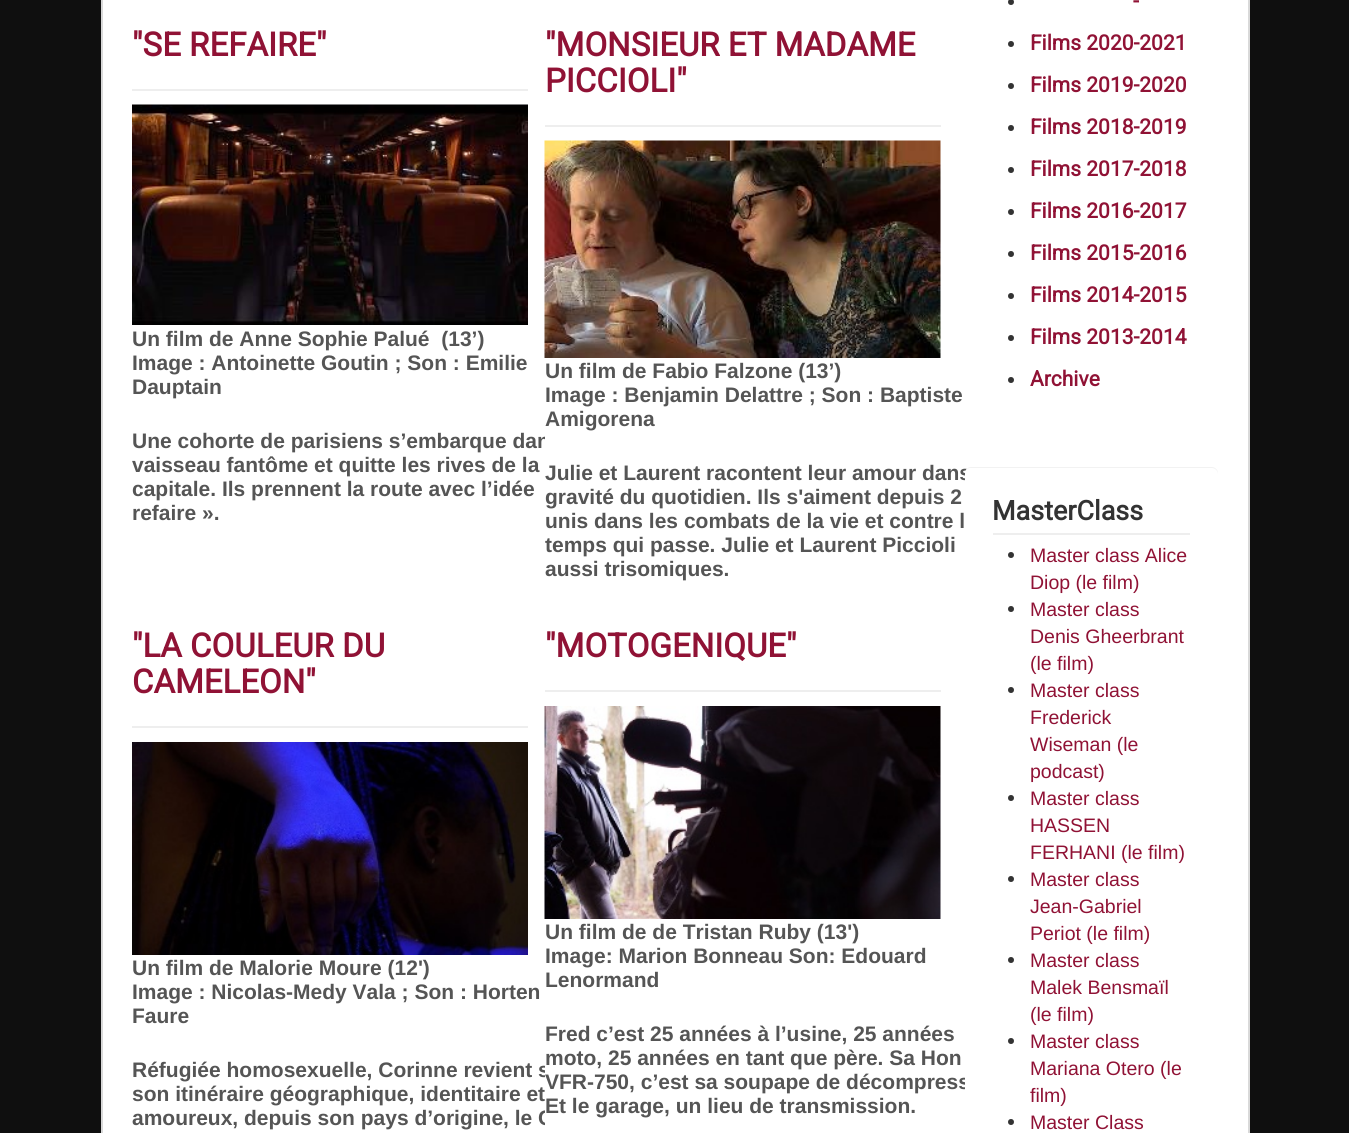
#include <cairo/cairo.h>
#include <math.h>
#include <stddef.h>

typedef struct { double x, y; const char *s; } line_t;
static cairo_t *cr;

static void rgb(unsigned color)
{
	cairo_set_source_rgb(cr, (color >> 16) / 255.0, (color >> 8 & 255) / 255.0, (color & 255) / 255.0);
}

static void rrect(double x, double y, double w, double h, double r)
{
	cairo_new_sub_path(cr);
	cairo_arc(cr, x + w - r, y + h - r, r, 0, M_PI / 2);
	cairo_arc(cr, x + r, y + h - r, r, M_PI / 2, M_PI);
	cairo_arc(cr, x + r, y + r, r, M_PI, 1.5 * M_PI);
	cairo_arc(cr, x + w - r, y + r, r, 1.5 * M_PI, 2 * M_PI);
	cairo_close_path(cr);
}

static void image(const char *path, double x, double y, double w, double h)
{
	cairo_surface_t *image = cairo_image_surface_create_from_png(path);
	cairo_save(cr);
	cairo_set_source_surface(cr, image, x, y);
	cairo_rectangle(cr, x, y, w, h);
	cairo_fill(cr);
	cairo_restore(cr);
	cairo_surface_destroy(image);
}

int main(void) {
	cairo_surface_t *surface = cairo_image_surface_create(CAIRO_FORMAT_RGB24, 1349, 1133);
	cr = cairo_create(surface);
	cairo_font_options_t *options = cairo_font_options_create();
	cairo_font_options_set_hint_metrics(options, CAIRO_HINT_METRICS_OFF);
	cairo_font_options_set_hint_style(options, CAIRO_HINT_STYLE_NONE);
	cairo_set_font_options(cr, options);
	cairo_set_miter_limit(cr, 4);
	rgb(0x0f0f0f);
	cairo_paint(cr);
	rgb(0xffffff);
	cairo_rectangle(cr, 102, -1, 1147, 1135);
	cairo_fill_preserve(cr);
	rgb(0xd9d9d9);
	cairo_stroke(cr);
	rgb(0xeeeeee);
	cairo_rectangle(cr, 132, 89, 396, 2);
	cairo_fill(cr);
	image("img/1.png", 132, 104, 396, 221);
	cairo_rectangle(cr, 545, 125, 396, 2);
	cairo_fill(cr);
	image("img/2.png", 544, 140, 397, 218);
	cairo_rectangle(cr, 132, 726, 396, 2);
	cairo_fill(cr);
	image("img/3.png", 132, 742, 396, 213);
	cairo_rectangle(cr, 545, 690, 396, 2);
	cairo_fill(cr);
	image("img/4.png", 544, 706, 397, 213);
	rgb(0x333333);
	cairo_arc(cr, 1011, 2, 3, 0, 2 * M_PI);
	cairo_fill(cr);
	cairo_arc(cr, 1011, 44, 3, 0, 2 * M_PI);
	cairo_fill(cr);
	cairo_arc(cr, 1011, 86, 3, 0, 2 * M_PI);
	cairo_fill(cr);
	cairo_arc(cr, 1011, 128, 3, 0, 2 * M_PI);
	cairo_fill(cr);
	cairo_arc(cr, 1011, 170, 3, 0, 2 * M_PI);
	cairo_fill(cr);
	cairo_arc(cr, 1011, 212, 3, 0, 2 * M_PI);
	cairo_fill(cr);
	cairo_arc(cr, 1011, 254, 3, 0, 2 * M_PI);
	cairo_fill(cr);
	cairo_arc(cr, 1011, 296, 3, 0, 2 * M_PI);
	cairo_fill(cr);
	cairo_arc(cr, 1011, 338, 3, 0, 2 * M_PI);
	cairo_fill(cr);
	cairo_arc(cr, 1011, 380, 3, 0, 2 * M_PI);
	cairo_fill(cr);
	cairo_select_font_face(cr, "Roboto", CAIRO_FONT_SLANT_NORMAL, CAIRO_FONT_WEIGHT_BOLD);
	cairo_set_font_size(cr, 33);
	rgb(0x901235);
	cairo_move_to(cr, 132, 56);
	cairo_show_text(cr, "\"SE REFAIRE\"");
	cairo_select_font_face(cr, "Liberation Sans", CAIRO_FONT_SLANT_NORMAL, CAIRO_FONT_WEIGHT_BOLD);
	cairo_set_font_size(cr, 21);
	rgb(0x555555);
	{
		static const line_t items[] = {
			{132, 346, "Un film de Anne Sophie Palué  (13’)"},
			{132, 370, "Image : Antoinette Goutin ; Son : Emilie"},
			{132, 394, "Dauptain"},
			{132, 448, "Une cohorte de parisiens s’embarque dan"},
			{132, 472, "vaisseau fantôme et quitte les rives de la"},
			{132, 496, "capitale. Ils prennent la route avec l’idée"},
			{132, 520, "refaire »."},
		};
		for (size_t i = 0; i < sizeof items / sizeof *items; i++) {
			cairo_move_to(cr, items[i].x, items[i].y);
			cairo_show_text(cr, items[i].s);
		}
	}
	cairo_select_font_face(cr, "Roboto", CAIRO_FONT_SLANT_NORMAL, CAIRO_FONT_WEIGHT_BOLD);
	cairo_set_font_size(cr, 33);
	rgb(0x901235);
	cairo_move_to(cr, 545, 56);
	cairo_show_text(cr, "\"MONSIEUR ET MADAME");
	cairo_move_to(cr, 545, 92);
	cairo_show_text(cr, "PICCIOLI\"");
	rgb(0xffffff);
	cairo_rectangle(cr, 545, 436, 4, 12);
	cairo_fill(cr);
	cairo_select_font_face(cr, "Liberation Sans", CAIRO_FONT_SLANT_NORMAL, CAIRO_FONT_WEIGHT_BOLD);
	cairo_set_font_size(cr, 21);
	rgb(0x555555);
	{
		static const line_t items[] = {
			{545, 378, "Un film de Fabio Falzone (13’)"},
			{545, 402, "Image : Benjamin Delattre ; Son : Baptiste"},
			{545, 426, "Amigorena"},
			{545, 480, "Julie et Laurent racontent leur amour dans"},
			{545, 504, "gravité du quotidien. Ils s'aiment depuis 2"},
			{545, 528, "unis dans les combats de la vie et contre l"},
			{545, 552, "temps qui passe. Julie et Laurent Piccioli"},
			{545, 576, "aussi trisomiques."},
		};
		for (size_t i = 0; i < sizeof items / sizeof *items; i++) {
			cairo_move_to(cr, items[i].x, items[i].y);
			cairo_show_text(cr, items[i].s);
		}
	}
	cairo_select_font_face(cr, "Roboto", CAIRO_FONT_SLANT_NORMAL, CAIRO_FONT_WEIGHT_BOLD);
	cairo_set_font_size(cr, 33);
	rgb(0x901235);
	cairo_move_to(cr, 132, 657);
	cairo_show_text(cr, "\"LA COULEUR DU");
	cairo_move_to(cr, 132, 693);
	cairo_show_text(cr, "CAMELEON\"");
	cairo_select_font_face(cr, "Liberation Sans", CAIRO_FONT_SLANT_NORMAL, CAIRO_FONT_WEIGHT_BOLD);
	cairo_set_font_size(cr, 21);
	rgb(0x555555);
	{
		static const line_t items[] = {
			{132, 975, "Un film de Malorie Moure (12')"},
			{132, 999, "Image : Nicolas-Medy Vala ; Son : Horten"},
			{132, 1023, "Faure"},
			{132, 1077, "Réfugiée homosexuelle, Corinne revient s"},
			{132, 1101, "son itinéraire géographique, identitaire et"},
			{132, 1125, "amoureux, depuis son pays d’origine, le C"},
		};
		for (size_t i = 0; i < sizeof items / sizeof *items; i++) {
			cairo_move_to(cr, items[i].x, items[i].y);
			cairo_show_text(cr, items[i].s);
		}
	}
	cairo_select_font_face(cr, "Roboto", CAIRO_FONT_SLANT_NORMAL, CAIRO_FONT_WEIGHT_BOLD);
	cairo_set_font_size(cr, 33);
	rgb(0x901235);
	cairo_move_to(cr, 545, 657);
	cairo_show_text(cr, "\"MOTOGENIQUE\"");
	cairo_select_font_face(cr, "Liberation Sans", CAIRO_FONT_SLANT_NORMAL, CAIRO_FONT_WEIGHT_BOLD);
	cairo_set_font_size(cr, 21);
	rgb(0x555555);
	{
		static const line_t items[] = {
			{545, 939, "Un film de de Tristan Ruby (13')"},
			{545, 963, "Image: Marion Bonneau Son: Edouard"},
			{545, 987, "Lenormand"},
		};
		for (size_t i = 0; i < sizeof items / sizeof *items; i++) {
			cairo_move_to(cr, items[i].x, items[i].y);
			cairo_show_text(cr, items[i].s);
		}
	}
	rgb(0xffffff);
	cairo_rectangle(cr, 545, 1065, 8, 61);
	cairo_fill(cr);
	rgb(0x555555);
	{
		static const line_t items[] = {
			{545, 1041, "Fred c’est 25 années à l’usine, 25 années"},
			{545, 1065, "moto, 25 années en tant que père. Sa Hon"},
			{545, 1089, "VFR-750, c’est sa soupape de décompress"},
			{545, 1113, "Et le garage, un lieu de transmission."},
		};
		for (size_t i = 0; i < sizeof items / sizeof *items; i++) {
			cairo_move_to(cr, items[i].x, items[i].y);
			cairo_show_text(cr, items[i].s);
		}
	}
	cairo_select_font_face(cr, "Roboto", CAIRO_FONT_SLANT_NORMAL, CAIRO_FONT_WEIGHT_BOLD);
	rgb(0x901235);
	{
		static const line_t items[] = {
			{1133, 8, "-"},
			{1030, 50, "Films 2020-2021"},
			{1030, 92, "Films 2019-2020"},
			{1030, 134, "Films 2018-2019"},
			{1030, 176, "Films 2017-2018"},
			{1030, 218, "Films 2016-2017"},
			{1030, 260, "Films 2015-2016"},
			{1030, 302, "Films 2014-2015"},
			{1030, 344, "Films 2013-2014"},
			{1030, 386, "Archive"},
		};
		for (size_t i = 0; i < sizeof items / sizeof *items; i++) {
			cairo_move_to(cr, items[i].x, items[i].y);
			cairo_show_text(cr, items[i].s);
		}
	}
	rgb(0xffffff);
	rrect(965, 467, 253, 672, 6);
	cairo_fill(cr);
	rgb(0xf2f2f2);
	cairo_new_path(cr);
	cairo_move_to(cr, 970, 468);
	cairo_line_to(cr, 1212, 468);
	cairo_curve_to(cr, 1215, 468, 1218, 471, 1218, 474);
	cairo_line_to(cr, 1218, 473);
	cairo_curve_to(cr, 1218, 470, 1215, 467, 1212, 467);
	cairo_line_to(cr, 971, 467);
	cairo_curve_to(cr, 969, 467, 967, 468, 966, 470);
	cairo_curve_to(cr, 967, 469, 969, 468, 970, 468);
	cairo_close_path(cr);
	cairo_fill(cr);
	rgb(0xeeeeee);
	cairo_rectangle(cr, 993, 533, 197, 2);
	cairo_fill(cr);
	cairo_set_font_size(cr, 27);
	rgb(0x333333);
	cairo_move_to(cr, 992, 520);
	cairo_show_text(cr, "MasterClass");
	cairo_new_path(cr);
	cairo_arc(cr, 1011, 555, 3, 0, 2 * M_PI);
	cairo_fill(cr);
	cairo_select_font_face(cr, "Liberation Sans", CAIRO_FONT_SLANT_NORMAL, CAIRO_FONT_WEIGHT_NORMAL);
	cairo_set_font_size(cr, 19.5);
	rgb(0x901235);
	cairo_move_to(cr, 1030, 562);
	cairo_show_text(cr, "Master class Alice");
	cairo_move_to(cr, 1030, 589);
	cairo_show_text(cr, "Diop (le film)");
	rgb(0x333333);
	cairo_new_path(cr);
	cairo_arc(cr, 1011, 609, 3, 0, 2 * M_PI);
	cairo_fill(cr);
	rgb(0x901235);
	{
		static const line_t items[] = {
			{1030, 616, "Master class"},
			{1030, 643, "Denis Gheerbrant"},
			{1030, 670, "(le film)"},
		};
		for (size_t i = 0; i < sizeof items / sizeof *items; i++) {
			cairo_move_to(cr, items[i].x, items[i].y);
			cairo_show_text(cr, items[i].s);
		}
	}
	rgb(0x333333);
	cairo_new_path(cr);
	cairo_arc(cr, 1011, 690, 3, 0, 2 * M_PI);
	cairo_fill(cr);
	rgb(0x901235);
	{
		static const line_t items[] = {
			{1030, 697, "Master class"},
			{1030, 724, "Frederick"},
			{1030, 751, "Wiseman (le"},
			{1030, 778, "podcast)"},
		};
		for (size_t i = 0; i < sizeof items / sizeof *items; i++) {
			cairo_move_to(cr, items[i].x, items[i].y);
			cairo_show_text(cr, items[i].s);
		}
	}
	rgb(0x333333);
	cairo_new_path(cr);
	cairo_arc(cr, 1011, 798, 3, 0, 2 * M_PI);
	cairo_fill(cr);
	rgb(0x901235);
	{
		static const line_t items[] = {
			{1030, 805, "Master class"},
			{1030, 832, "HASSEN"},
			{1030, 859, "FERHANI (le film)"},
		};
		for (size_t i = 0; i < sizeof items / sizeof *items; i++) {
			cairo_move_to(cr, items[i].x, items[i].y);
			cairo_show_text(cr, items[i].s);
		}
	}
	rgb(0x333333);
	cairo_new_path(cr);
	cairo_arc(cr, 1011, 879, 3, 0, 2 * M_PI);
	cairo_fill(cr);
	rgb(0x901235);
	{
		static const line_t items[] = {
			{1030, 886, "Master class"},
			{1030, 913, "Jean-Gabriel"},
			{1030, 940, "Periot (le film)"},
		};
		for (size_t i = 0; i < sizeof items / sizeof *items; i++) {
			cairo_move_to(cr, items[i].x, items[i].y);
			cairo_show_text(cr, items[i].s);
		}
	}
	rgb(0x333333);
	cairo_new_path(cr);
	cairo_arc(cr, 1011, 960, 3, 0, 2 * M_PI);
	cairo_fill(cr);
	rgb(0x901235);
	{
		static const line_t items[] = {
			{1030, 967, "Master class"},
			{1030, 994, "Malek Bensmaïl"},
			{1030, 1021, "(le film)"},
		};
		for (size_t i = 0; i < sizeof items / sizeof *items; i++) {
			cairo_move_to(cr, items[i].x, items[i].y);
			cairo_show_text(cr, items[i].s);
		}
	}
	rgb(0x333333);
	cairo_new_path(cr);
	cairo_arc(cr, 1011, 1041, 3, 0, 2 * M_PI);
	cairo_fill(cr);
	rgb(0x901235);
	{
		static const line_t items[] = {
			{1030, 1048, "Master class"},
			{1030, 1075, "Mariana Otero (le"},
			{1030, 1102, "film)"},
		};
		for (size_t i = 0; i < sizeof items / sizeof *items; i++) {
			cairo_move_to(cr, items[i].x, items[i].y);
			cairo_show_text(cr, items[i].s);
		}
	}
	rgb(0x333333);
	cairo_new_path(cr);
	cairo_arc(cr, 1011, 1122, 3, 0, 2 * M_PI);
	cairo_fill(cr);
	rgb(0x901235);
	cairo_move_to(cr, 1030, 1129);
	cairo_show_text(cr, "Master Class");
	cairo_surface_write_to_png(surface, "page.png");
	cairo_font_options_destroy(options);
	cairo_destroy(cr);
	cairo_surface_destroy(surface);
	return 0;
}
